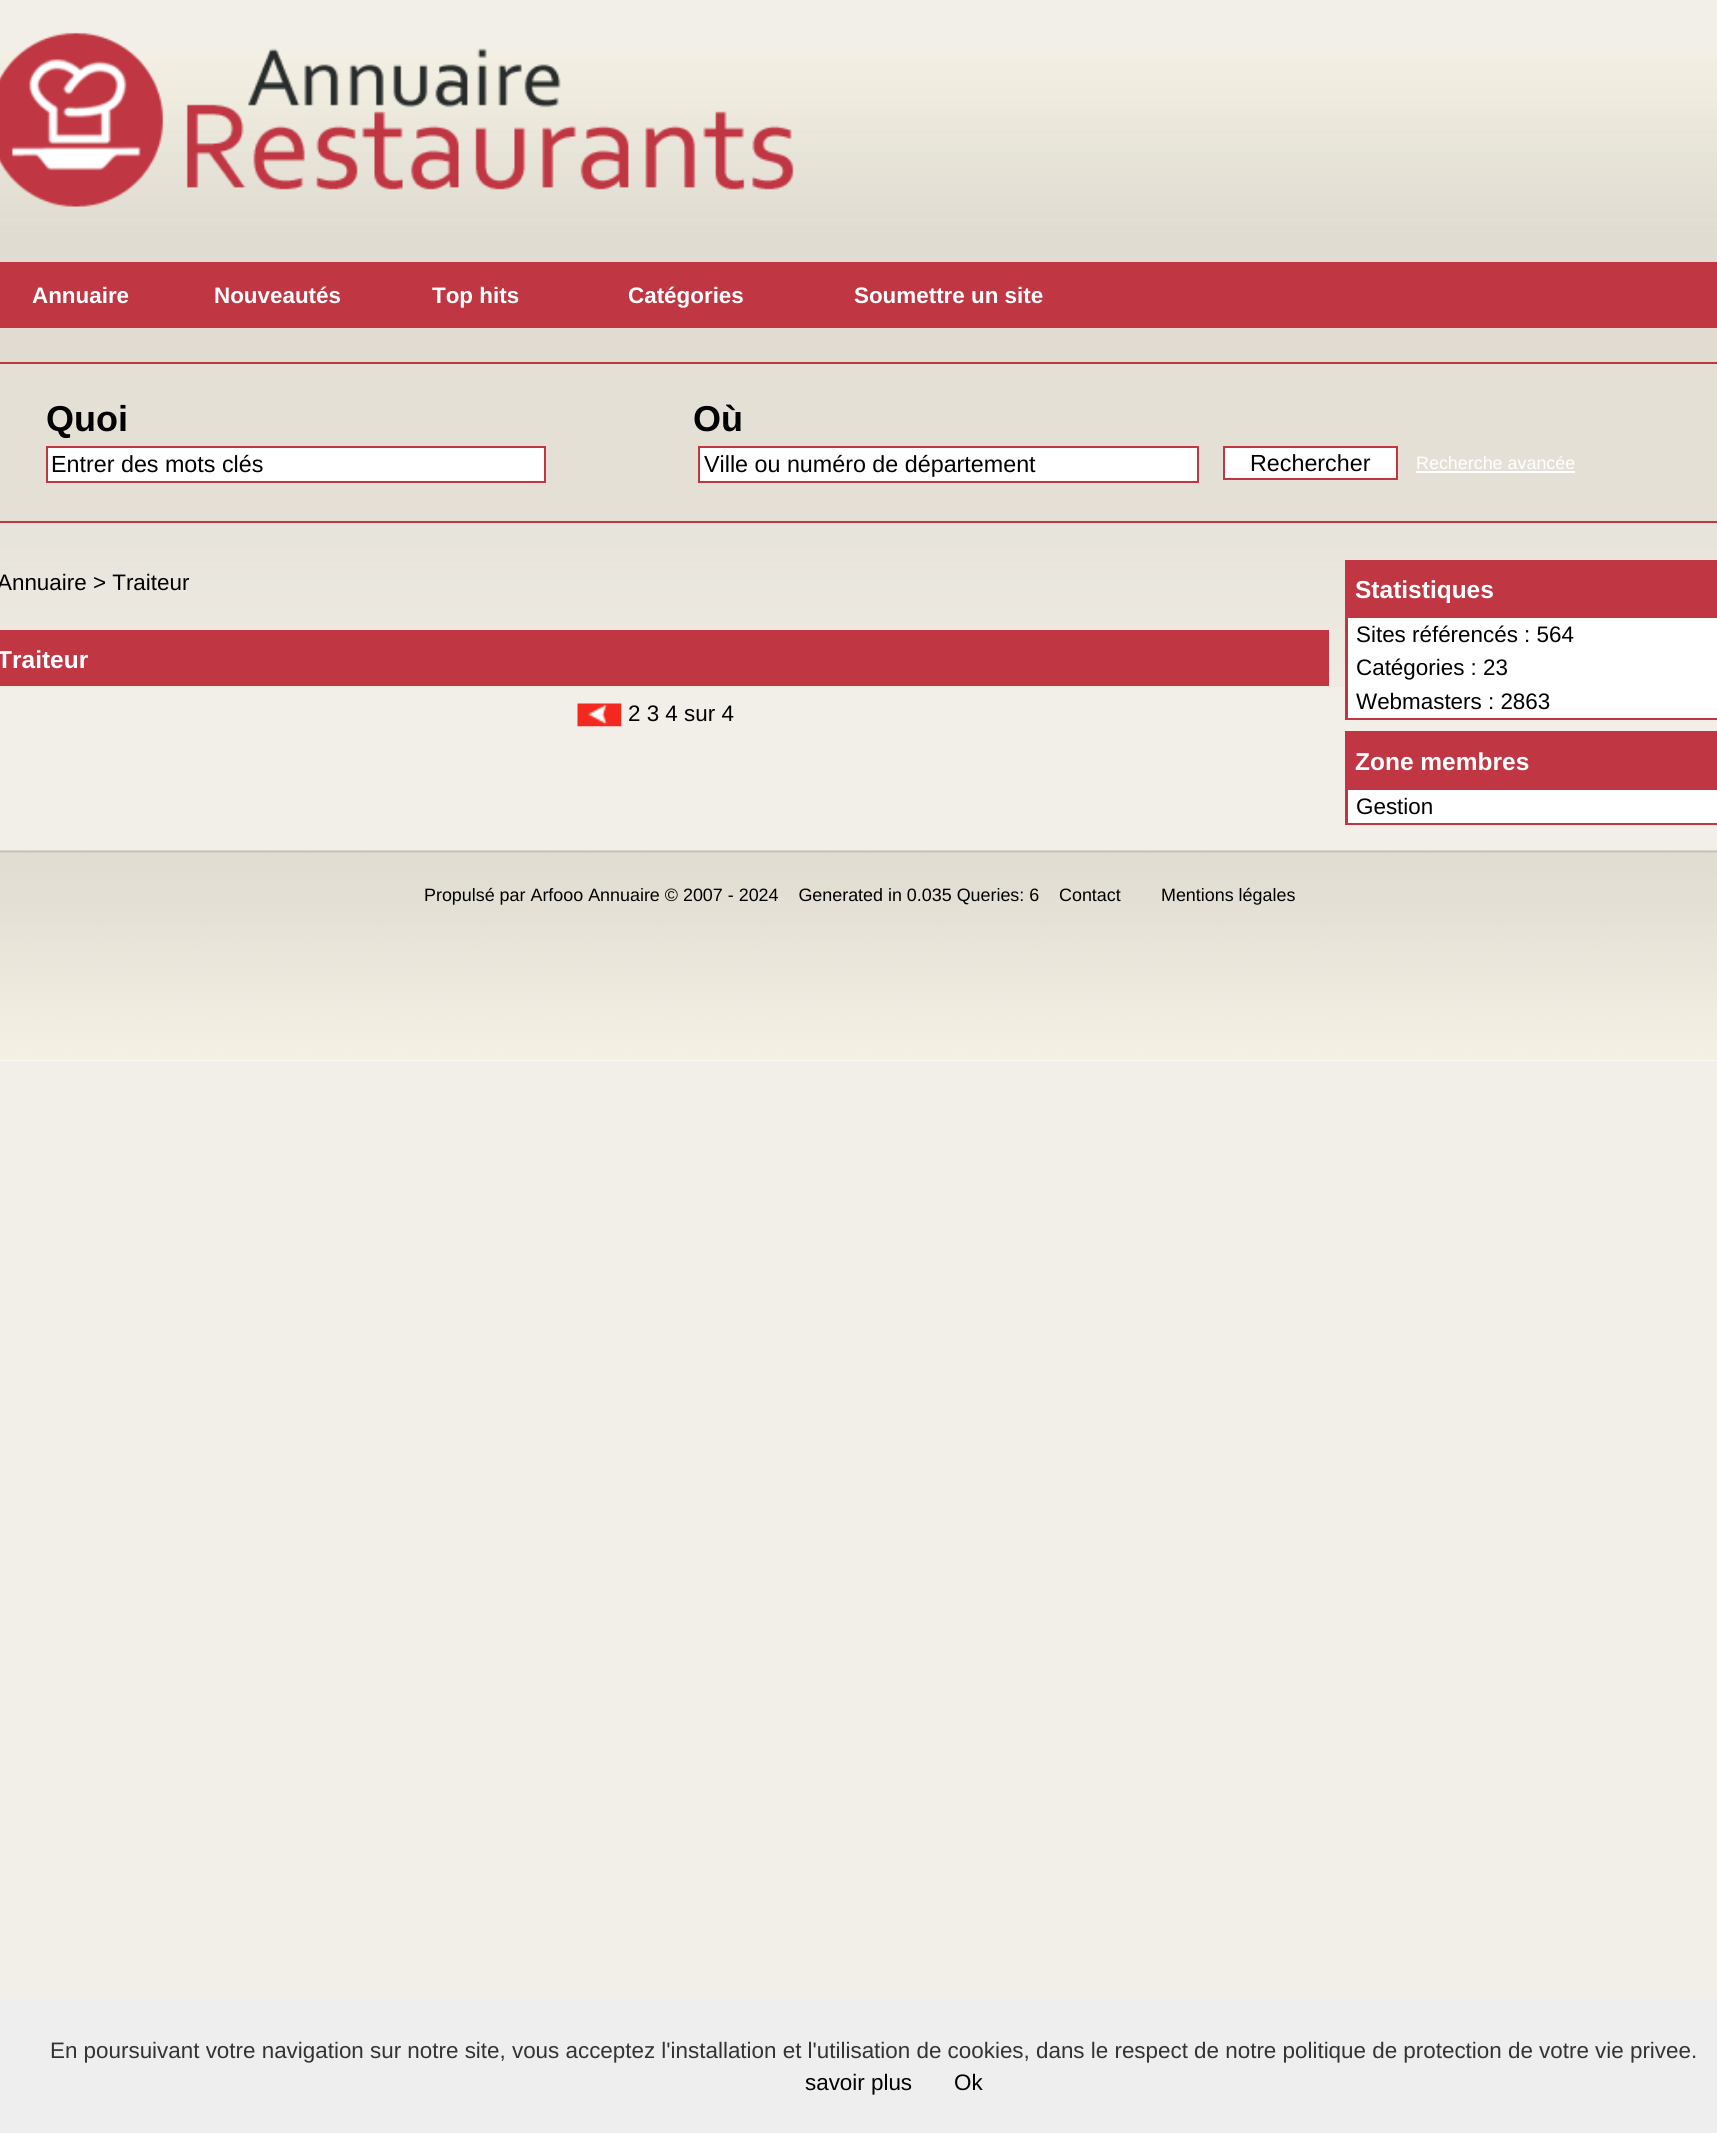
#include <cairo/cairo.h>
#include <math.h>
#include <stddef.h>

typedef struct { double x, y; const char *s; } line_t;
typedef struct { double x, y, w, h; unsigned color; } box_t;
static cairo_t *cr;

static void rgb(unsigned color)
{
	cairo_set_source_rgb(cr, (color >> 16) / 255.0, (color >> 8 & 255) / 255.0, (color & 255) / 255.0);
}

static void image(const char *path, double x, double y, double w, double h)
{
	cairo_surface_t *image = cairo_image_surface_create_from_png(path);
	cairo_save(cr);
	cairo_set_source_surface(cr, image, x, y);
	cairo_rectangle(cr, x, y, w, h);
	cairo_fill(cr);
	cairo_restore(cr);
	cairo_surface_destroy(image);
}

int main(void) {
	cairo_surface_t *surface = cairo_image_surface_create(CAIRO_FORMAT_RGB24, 1717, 2133);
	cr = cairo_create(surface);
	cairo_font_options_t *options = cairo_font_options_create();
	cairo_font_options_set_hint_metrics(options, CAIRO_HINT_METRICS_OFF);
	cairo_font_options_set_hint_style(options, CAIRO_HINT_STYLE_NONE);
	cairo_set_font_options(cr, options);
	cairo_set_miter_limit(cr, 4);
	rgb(0xf2efe8);
	cairo_paint(cr);
	image("img/1.png", 0, 52, 1717, 635);
	image("img/2.png", 0, 32, 794, 175);
	rgb(0xc03643);
	cairo_rectangle(cr, 0, 262, 1717, 66);
	cairo_fill(cr);
	rgb(0xe4e0d6);
	cairo_rectangle(cr, -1, 363, 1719, 159);
	cairo_fill_preserve(cr);
	rgb(0xc03643);
	cairo_stroke(cr);
	rgb(0xffffff);
	cairo_rectangle(cr, 47, 447, 498, 35);
	cairo_fill_preserve(cr);
	rgb(0xc03643);
	cairo_stroke(cr);
	rgb(0xffffff);
	cairo_rectangle(cr, 699, 447, 499, 35);
	cairo_fill_preserve(cr);
	rgb(0xc03643);
	cairo_stroke(cr);
	rgb(0xffffff);
	cairo_rectangle(cr, 1224, 447, 173, 32);
	cairo_fill_preserve(cr);
	rgb(0xc03643);
	cairo_stroke(cr);
	rgb(0xffffff);
	cairo_rectangle(cr, 1416, 471, 159, 2);
	cairo_fill(cr);
	rgb(0xc03643);
	cairo_rectangle(cr, 0, 630, 1329, 56);
	cairo_fill(cr);
	image("img/3.png", 577, 703, 45, 24);
	{
		static const box_t items[] = {
			{1348, 618, 369, 100, 0xffffff},
			{1345, 560, 3, 160, 0xc03643},
			{1348, 560, 369, 58, 0xc03643},
			{1346, 718, 371, 2, 0xc03643},
			{1348, 790, 369, 33, 0xffffff},
			{1345, 731, 3, 94, 0xc03643},
			{1348, 731, 369, 59, 0xc03643},
			{1346, 823, 371, 2, 0xc03643},
			{0, 1060, 1717, 1, 0xffffff},
		};
		for (size_t i = 0; i < sizeof items / sizeof *items; i++) {
			rgb(items[i].color);
			cairo_rectangle(cr, items[i].x, items[i].y, items[i].w, items[i].h);
			cairo_fill(cr);
		}
	}
	image("img/4.png", 0, 850, 1717, 211);
	rgb(0xeeeeee);
	cairo_rectangle(cr, 0, 2000, 1717, 133);
	cairo_fill(cr);
	cairo_select_font_face(cr, "Liberation Sans", CAIRO_FONT_SLANT_NORMAL, CAIRO_FONT_WEIGHT_BOLD);
	cairo_set_font_size(cr, 22.4);
	rgb(0xffffff);
	{
		static const line_t items[] = {
			{32, 303, "Annuaire"},
			{214, 303, "Nouveautés"},
			{432, 303, "Top hits"},
			{628, 303, "Catégories"},
			{854, 303, "Soumettre un site"},
		};
		for (size_t i = 0; i < sizeof items / sizeof *items; i++) {
			cairo_move_to(cr, items[i].x, items[i].y);
			cairo_show_text(cr, items[i].s);
		}
	}
	cairo_set_font_size(cr, 36);
	rgb(0x000000);
	cairo_move_to(cr, 46, 431);
	cairo_show_text(cr, "Quoi");
	cairo_move_to(cr, 693, 431);
	cairo_show_text(cr, "Où");
	cairo_select_font_face(cr, "Liberation Sans", CAIRO_FONT_SLANT_NORMAL, CAIRO_FONT_WEIGHT_NORMAL);
	cairo_set_font_size(cr, 23.3);
	{
		static const line_t items[] = {
			{51, 472, "Entrer des mots clés"},
			{704, 472, "Ville ou numéro de département"},
			{1250, 471, "Rechercher"},
		};
		for (size_t i = 0; i < sizeof items / sizeof *items; i++) {
			cairo_move_to(cr, items[i].x, items[i].y);
			cairo_show_text(cr, items[i].s);
		}
	}
	cairo_set_font_size(cr, 17.9);
	rgb(0xffffff);
	cairo_move_to(cr, 1416, 469);
	cairo_show_text(cr, "Recherche avancée");
	cairo_set_font_size(cr, 22.4);
	rgb(0x000000);
	cairo_move_to(cr, -3, 590);
	cairo_show_text(cr, "Annuaire > Traiteur");
	cairo_select_font_face(cr, "Liberation Sans", CAIRO_FONT_SLANT_NORMAL, CAIRO_FONT_WEIGHT_BOLD);
	cairo_set_font_size(cr, 24.5);
	rgb(0xffffff);
	cairo_move_to(cr, -3, 668);
	cairo_show_text(cr, "Traiteur");
	cairo_select_font_face(cr, "Liberation Sans", CAIRO_FONT_SLANT_NORMAL, CAIRO_FONT_WEIGHT_NORMAL);
	cairo_set_font_size(cr, 22.4);
	rgb(0x000000);
	cairo_move_to(cr, 628, 721);
	cairo_show_text(cr, "2 3 4 sur 4");
	cairo_select_font_face(cr, "Liberation Sans", CAIRO_FONT_SLANT_NORMAL, CAIRO_FONT_WEIGHT_BOLD);
	cairo_set_font_size(cr, 24.5);
	rgb(0xffffff);
	cairo_move_to(cr, 1355, 598);
	cairo_show_text(cr, "Statistiques");
	cairo_select_font_face(cr, "Liberation Sans", CAIRO_FONT_SLANT_NORMAL, CAIRO_FONT_WEIGHT_NORMAL);
	cairo_set_font_size(cr, 22.4);
	rgb(0x000000);
	{
		static const line_t items[] = {
			{1356, 642, "Sites référencés : 564"},
			{1356, 675, "Catégories : 23"},
			{1356, 709, "Webmasters : 2863"},
		};
		for (size_t i = 0; i < sizeof items / sizeof *items; i++) {
			cairo_move_to(cr, items[i].x, items[i].y);
			cairo_show_text(cr, items[i].s);
		}
	}
	cairo_select_font_face(cr, "Liberation Sans", CAIRO_FONT_SLANT_NORMAL, CAIRO_FONT_WEIGHT_BOLD);
	cairo_set_font_size(cr, 24.5);
	rgb(0xffffff);
	cairo_move_to(cr, 1355, 770);
	cairo_show_text(cr, "Zone membres");
	cairo_select_font_face(cr, "Liberation Sans", CAIRO_FONT_SLANT_NORMAL, CAIRO_FONT_WEIGHT_NORMAL);
	cairo_set_font_size(cr, 22.4);
	rgb(0x000000);
	cairo_move_to(cr, 1356, 814);
	cairo_show_text(cr, "Gestion");
	cairo_set_font_size(cr, 17.9);
	{
		static const line_t items[] = {
			{424, 901, "Propulsé par Arfooo Annuaire © 2007 - 2024    Generated in 0.035 Queries: 6"},
			{1059, 901, "Contact"},
			{1161, 901, "Mentions légales"},
		};
		for (size_t i = 0; i < sizeof items / sizeof *items; i++) {
			cairo_move_to(cr, items[i].x, items[i].y);
			cairo_show_text(cr, items[i].s);
		}
	}
	cairo_set_font_size(cr, 22.4);
	rgb(0x333333);
	cairo_move_to(cr, 50, 2058);
	cairo_show_text(cr, "En poursuivant votre navigation sur notre site, vous acceptez l'installation et l'utilisation de cookies, dans le respect de notre politique de protection de votre vie privee.");
	rgb(0x000000);
	cairo_move_to(cr, 805, 2090);
	cairo_show_text(cr, "savoir plus");
	cairo_move_to(cr, 954, 2090);
	cairo_show_text(cr, "Ok");
	cairo_surface_write_to_png(surface, "page.png");
	cairo_font_options_destroy(options);
	cairo_destroy(cr);
	cairo_surface_destroy(surface);
	return 0;
}
